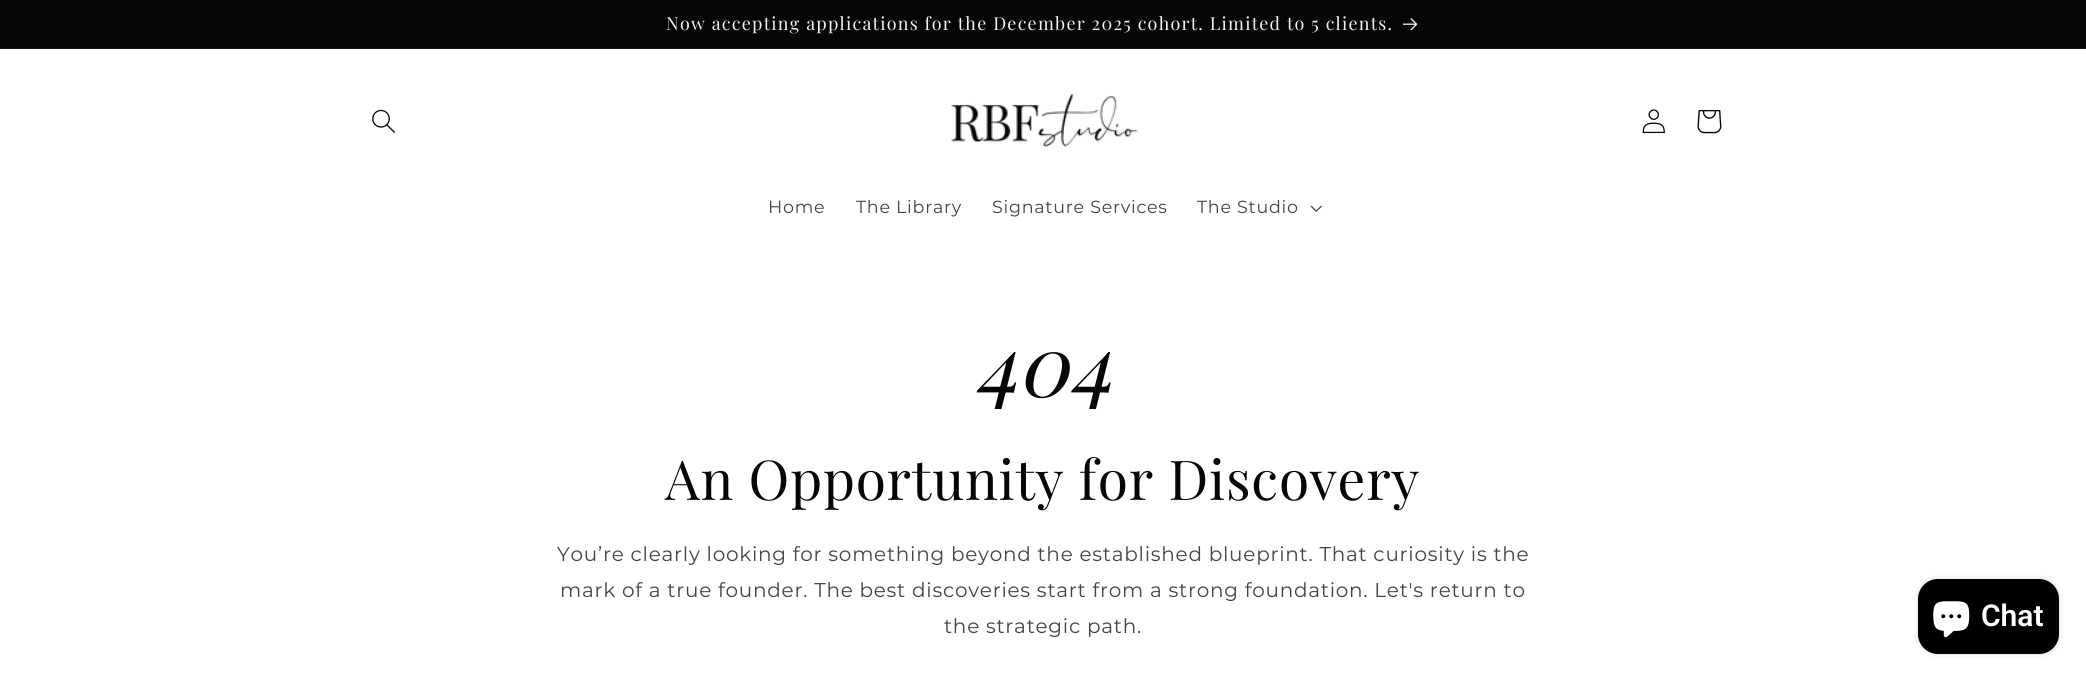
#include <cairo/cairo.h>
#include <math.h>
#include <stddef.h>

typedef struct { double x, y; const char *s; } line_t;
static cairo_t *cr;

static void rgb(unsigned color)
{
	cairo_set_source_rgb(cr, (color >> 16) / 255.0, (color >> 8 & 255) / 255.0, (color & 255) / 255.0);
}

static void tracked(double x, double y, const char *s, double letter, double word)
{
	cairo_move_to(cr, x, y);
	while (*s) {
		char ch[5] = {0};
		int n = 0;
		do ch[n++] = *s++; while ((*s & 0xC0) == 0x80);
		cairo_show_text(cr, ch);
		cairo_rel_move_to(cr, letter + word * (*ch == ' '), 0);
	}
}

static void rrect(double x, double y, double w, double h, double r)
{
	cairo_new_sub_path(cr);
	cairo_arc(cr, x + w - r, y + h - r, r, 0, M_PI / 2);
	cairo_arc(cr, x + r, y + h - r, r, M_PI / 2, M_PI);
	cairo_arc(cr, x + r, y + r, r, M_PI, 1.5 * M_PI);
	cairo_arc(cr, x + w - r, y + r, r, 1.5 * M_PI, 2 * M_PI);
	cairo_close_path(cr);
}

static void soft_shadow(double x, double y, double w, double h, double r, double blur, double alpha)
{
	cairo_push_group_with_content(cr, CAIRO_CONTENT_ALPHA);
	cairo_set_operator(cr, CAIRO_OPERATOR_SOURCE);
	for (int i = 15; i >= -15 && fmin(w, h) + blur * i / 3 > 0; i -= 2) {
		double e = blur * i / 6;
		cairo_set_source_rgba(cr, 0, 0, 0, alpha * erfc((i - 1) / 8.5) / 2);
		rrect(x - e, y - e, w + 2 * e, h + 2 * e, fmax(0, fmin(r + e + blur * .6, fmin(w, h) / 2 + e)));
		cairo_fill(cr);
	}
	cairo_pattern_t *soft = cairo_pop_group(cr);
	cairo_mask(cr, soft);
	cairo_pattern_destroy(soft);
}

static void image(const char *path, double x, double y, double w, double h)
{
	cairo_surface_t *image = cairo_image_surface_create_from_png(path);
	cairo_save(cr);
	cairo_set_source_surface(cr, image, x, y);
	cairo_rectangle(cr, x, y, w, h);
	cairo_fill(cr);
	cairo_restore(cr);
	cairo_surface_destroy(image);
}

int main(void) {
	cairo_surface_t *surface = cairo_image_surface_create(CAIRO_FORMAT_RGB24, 2086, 680);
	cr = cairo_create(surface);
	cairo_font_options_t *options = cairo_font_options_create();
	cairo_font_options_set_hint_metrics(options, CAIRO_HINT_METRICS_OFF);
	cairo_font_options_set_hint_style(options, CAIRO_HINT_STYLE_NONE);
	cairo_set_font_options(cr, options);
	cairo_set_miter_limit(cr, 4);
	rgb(0xffffff);
	cairo_paint(cr);
	rgb(0x060606);
	cairo_rectangle(cr, 0, 0, 2086, 48);
	cairo_fill(cr);
	rgb(0x191919);
	cairo_rectangle(cr, 0, 48, 2086, 1);
	cairo_fill(cr);
	image("img/1.png", 1403, 18, 15, 13);
	image("img/2.png", 372, 109, 23, 24);
	image("img/3.png", 951, 93, 187, 54);
	image("img/4.png", 1642, 109, 23, 25);
	image("img/5.png", 1697, 110, 25, 24);
	image("img/6.png", 1310, 205, 12, 7);
	rgb(0x000000);
	soft_shadow(1918, 579, 141, 75, 20, 3, 0.15);
	rgb(0x000000);
	rrect(1918, 579, 141, 75, 20);
	cairo_fill(cr);
	image("img/7.png", 1933, 601, 37, 37);
	cairo_select_font_face(cr, "Playfair Display", CAIRO_FONT_SLANT_NORMAL, CAIRO_FONT_WEIGHT_NORMAL);
	cairo_set_font_size(cr, 17.9);
	rgb(0xf1f1f1);
	tracked(666, 30, "Now accepting applications for the December 2025 cohort. Limited to 5 clients.", 1.25, 0);
	cairo_select_font_face(cr, "Montserrat", CAIRO_FONT_SLANT_NORMAL, CAIRO_FONT_WEIGHT_NORMAL);
	cairo_set_font_size(cr, 17.5);
	rgb(0x444444);
	{
		static const line_t items[] = {
			{768, 213, "Home"},
			{856, 213, "The Library"},
			{992, 213, "Signature Services"},
			{1197, 213, "The Studio"},
		};
		for (size_t i = 0; i < sizeof items / sizeof *items; i++) {
			tracked(items[i].x, items[i].y, items[i].s, 0.75, 0);
		}
	}
	cairo_select_font_face(cr, "Playfair Display", CAIRO_FONT_SLANT_ITALIC, CAIRO_FONT_WEIGHT_NORMAL);
	cairo_set_font_size(cr, 85);
	rgb(0x060606);
	tracked(974, 397, "404", 0.8, 0);
	cairo_select_font_face(cr, "Playfair Display", CAIRO_FONT_SLANT_NORMAL, CAIRO_FONT_WEIGHT_NORMAL);
	cairo_set_font_size(cr, 55);
	tracked(665, 500, "An Opportunity for Discovery", 0.8, 0);
	cairo_select_font_face(cr, "Montserrat", CAIRO_FONT_SLANT_NORMAL, CAIRO_FONT_WEIGHT_NORMAL);
	cairo_set_font_size(cr, 20);
	rgb(0x444444);
	{
		static const line_t items[] = {
			{557, 561, "You’re clearly looking for something beyond the established blueprint. That curiosity is the"},
			{560, 597, "mark of a true founder. The best discoveries start from a strong foundation. Let's return to"},
			{944, 633, "the strategic path."},
		};
		for (size_t i = 0; i < sizeof items / sizeof *items; i++) {
			tracked(items[i].x, items[i].y, items[i].s, 0.75, 0);
		}
	}
	cairo_select_font_face(cr, "Roboto SemiBold", CAIRO_FONT_SLANT_NORMAL, CAIRO_FONT_WEIGHT_NORMAL);
	cairo_set_font_size(cr, 30);
	rgb(0xffffff);
	cairo_move_to(cr, 1981, 626);
	cairo_show_text(cr, "Chat");
	cairo_surface_write_to_png(surface, "page.png");
	cairo_font_options_destroy(options);
	cairo_destroy(cr);
	cairo_surface_destroy(surface);
	return 0;
}
